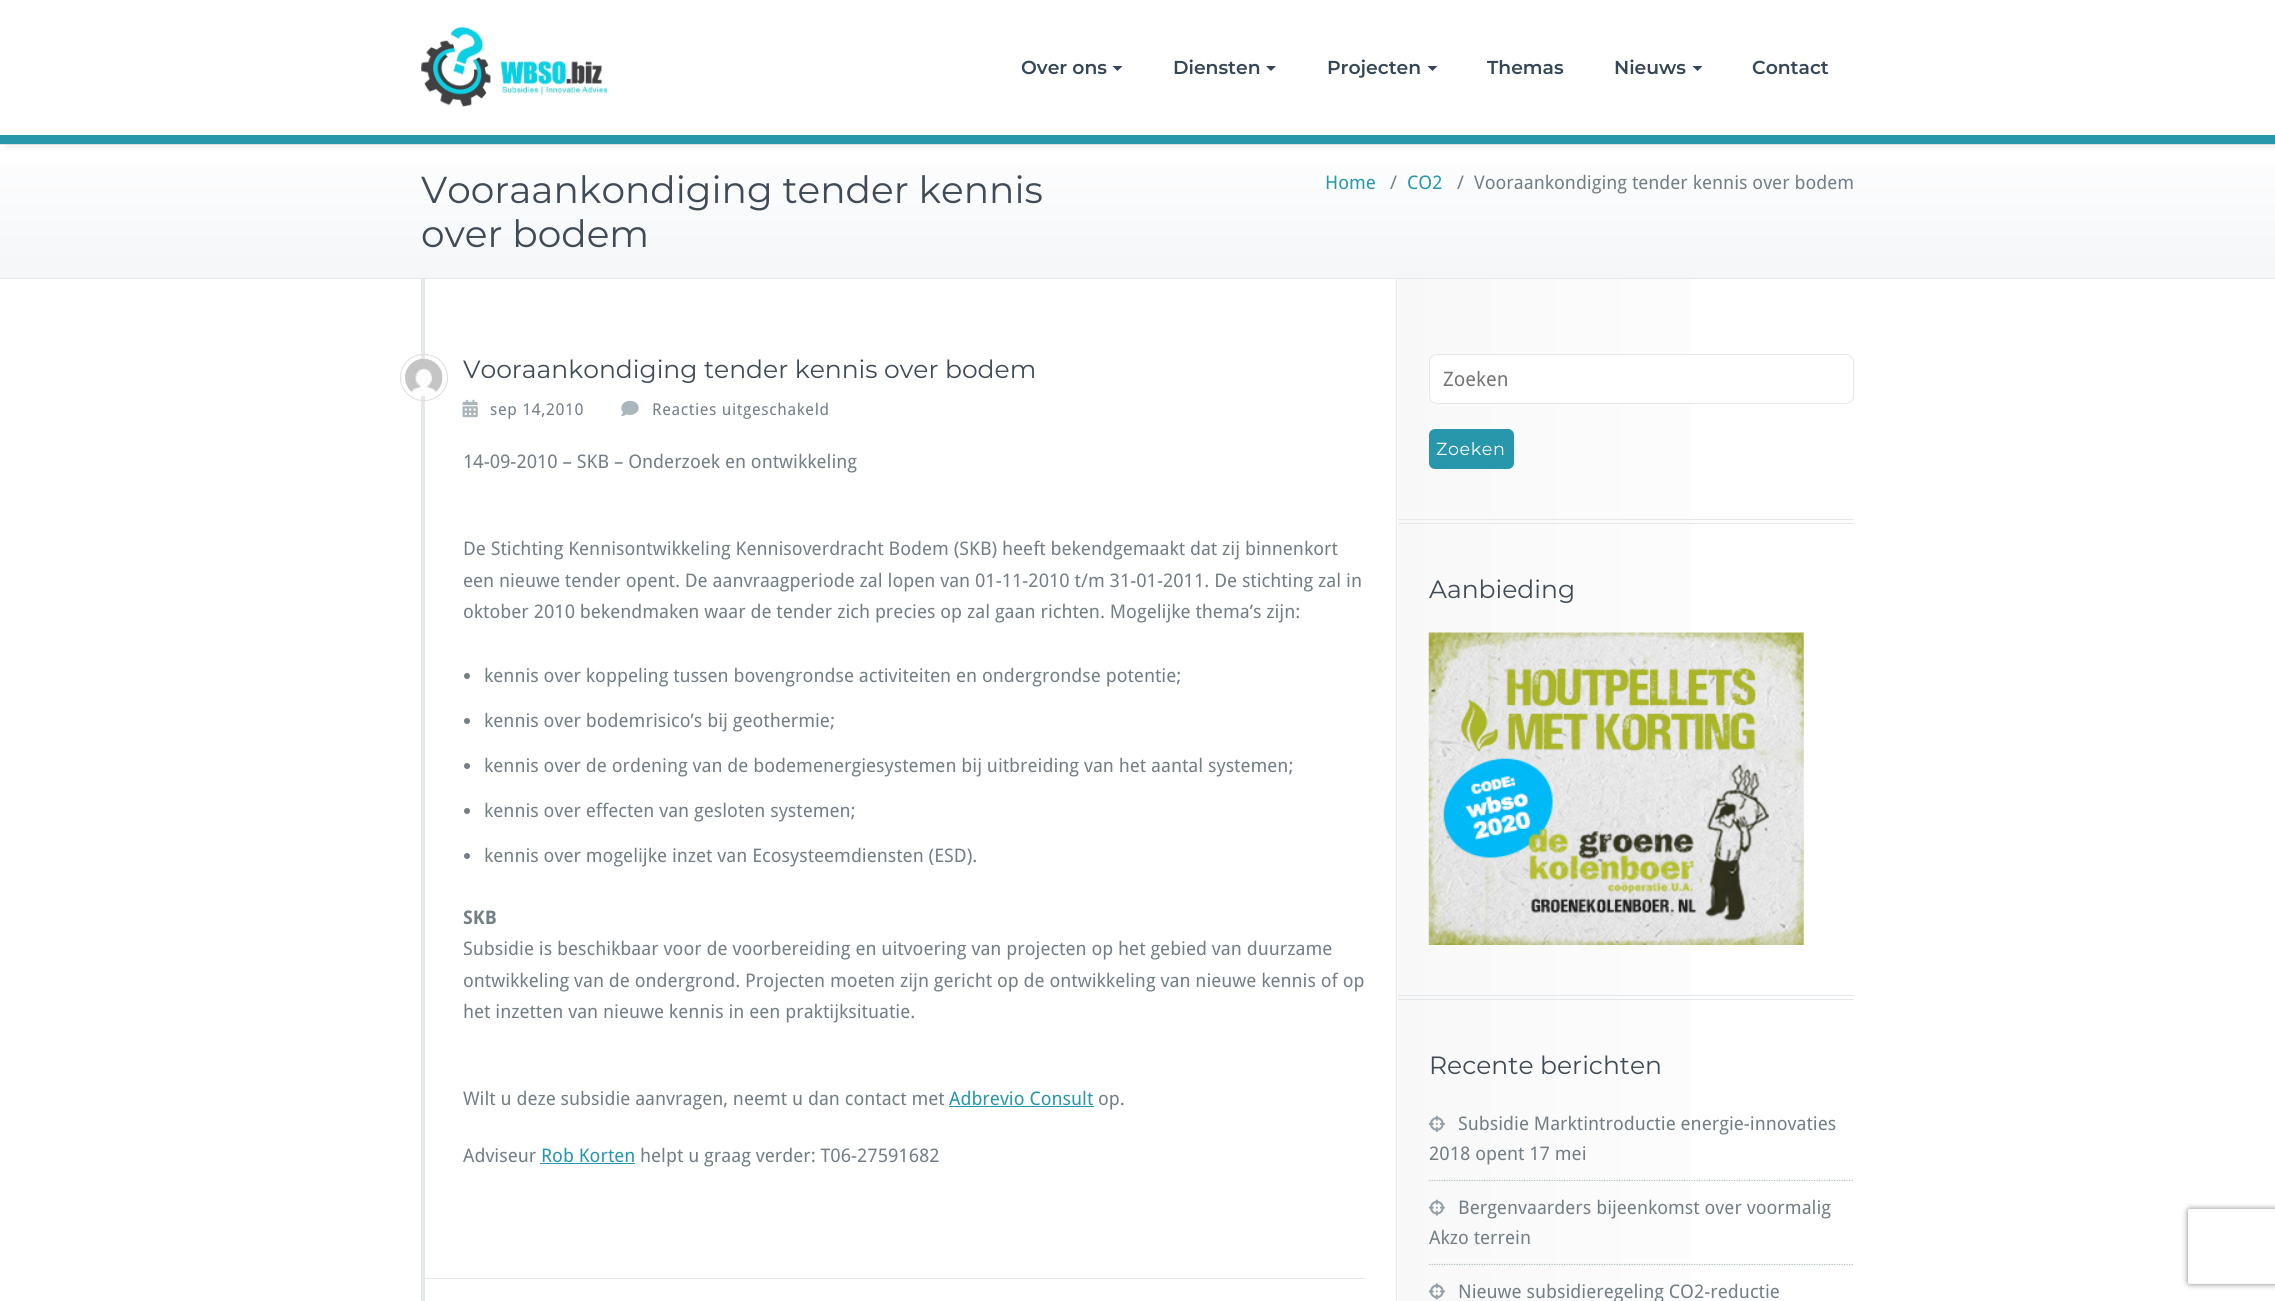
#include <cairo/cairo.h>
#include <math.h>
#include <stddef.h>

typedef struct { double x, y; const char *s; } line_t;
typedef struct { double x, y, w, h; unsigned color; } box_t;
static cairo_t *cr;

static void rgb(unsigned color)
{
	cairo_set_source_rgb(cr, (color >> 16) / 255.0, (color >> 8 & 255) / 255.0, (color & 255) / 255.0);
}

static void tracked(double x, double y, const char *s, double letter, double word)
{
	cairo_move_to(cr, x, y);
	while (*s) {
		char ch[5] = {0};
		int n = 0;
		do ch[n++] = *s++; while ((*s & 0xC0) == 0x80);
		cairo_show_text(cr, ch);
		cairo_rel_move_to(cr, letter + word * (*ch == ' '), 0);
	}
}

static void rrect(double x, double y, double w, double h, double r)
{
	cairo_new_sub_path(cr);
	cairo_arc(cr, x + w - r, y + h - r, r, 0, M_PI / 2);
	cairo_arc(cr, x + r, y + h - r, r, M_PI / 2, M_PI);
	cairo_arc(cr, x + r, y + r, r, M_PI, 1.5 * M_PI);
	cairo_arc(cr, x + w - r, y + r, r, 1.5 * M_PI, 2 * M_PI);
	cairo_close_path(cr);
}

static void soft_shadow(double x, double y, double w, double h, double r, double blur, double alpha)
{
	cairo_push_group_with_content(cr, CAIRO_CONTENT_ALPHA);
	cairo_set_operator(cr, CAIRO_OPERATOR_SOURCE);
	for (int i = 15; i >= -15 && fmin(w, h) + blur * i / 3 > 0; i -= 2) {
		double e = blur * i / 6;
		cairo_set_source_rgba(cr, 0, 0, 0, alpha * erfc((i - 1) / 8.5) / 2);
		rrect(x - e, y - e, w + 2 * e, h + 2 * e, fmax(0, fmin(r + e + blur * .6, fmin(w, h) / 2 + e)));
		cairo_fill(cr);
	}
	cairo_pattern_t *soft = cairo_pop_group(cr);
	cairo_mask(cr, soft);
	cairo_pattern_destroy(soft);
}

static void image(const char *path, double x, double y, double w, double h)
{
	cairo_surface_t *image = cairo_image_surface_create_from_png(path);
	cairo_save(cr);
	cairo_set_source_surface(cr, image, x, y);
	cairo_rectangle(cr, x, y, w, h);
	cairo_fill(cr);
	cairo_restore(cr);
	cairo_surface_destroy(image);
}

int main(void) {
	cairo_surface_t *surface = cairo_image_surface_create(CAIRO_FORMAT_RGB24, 2275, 1301);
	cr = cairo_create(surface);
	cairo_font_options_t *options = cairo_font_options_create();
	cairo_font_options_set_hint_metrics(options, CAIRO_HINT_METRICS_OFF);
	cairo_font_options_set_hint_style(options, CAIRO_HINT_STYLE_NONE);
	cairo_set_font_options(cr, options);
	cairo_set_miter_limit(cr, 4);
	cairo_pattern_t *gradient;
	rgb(0xffffff);
	cairo_paint(cr);
	rgb(0xe4e8ea);
	cairo_rectangle(cr, 0, 144, 2275, 1);
	cairo_fill(cr);
	rgb(0x000000);
	soft_shadow(5, 5, 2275, 144, 0, 2, 0.04);
	rgb(0xffffff);
	cairo_rectangle(cr, 4, 4, 2271, 131);
	cairo_fill(cr);
	rgb(0x2997ab);
	cairo_rectangle(cr, 0, 135, 2275, 9);
	cairo_fill(cr);
	image("img/1.png", 421, 22, 188, 85);
	rgb(0x354656);
	cairo_new_path(cr);
	cairo_move_to(cr, 1112.5, 66);
	cairo_line_to(cr, 1122.5, 66);
	cairo_line_to(cr, 1117.5, 71);
	cairo_close_path(cr);
	cairo_fill(cr);
	cairo_new_path(cr);
	cairo_move_to(cr, 1266, 66);
	cairo_line_to(cr, 1276, 66);
	cairo_line_to(cr, 1271, 71);
	cairo_close_path(cr);
	cairo_fill(cr);
	cairo_new_path(cr);
	cairo_move_to(cr, 1427.5, 66);
	cairo_line_to(cr, 1437.5, 66);
	cairo_line_to(cr, 1432.5, 71);
	cairo_close_path(cr);
	cairo_fill(cr);
	cairo_new_path(cr);
	cairo_move_to(cr, 1692.5, 66);
	cairo_line_to(cr, 1702.5, 66);
	cairo_line_to(cr, 1697.5, 71);
	cairo_close_path(cr);
	cairo_fill(cr);
	gradient = cairo_pattern_create_linear(1138, 145, 1138, 278);
	cairo_pattern_add_color_stop_rgba(gradient, 0, 0.996, 0.996, 1, 1);
	cairo_pattern_add_color_stop_rgba(gradient, 1, 0.957, 0.965, 0.969, 1);
	cairo_set_source(cr, gradient);
	cairo_pattern_destroy(gradient);
	cairo_rectangle(cr, 0, 165, 2275, 113);
	cairo_fill(cr);
	{
		static const box_t items[] = {
			{0, 278, 2275, 1, 0xe4e8ea},
			{421, 279, 4, 1022, 0xe4e8ea},
			{425, 1278, 941, 1, 0xe4e8ea},
		};
		for (size_t i = 0; i < sizeof items / sizeof *items; i++) {
			rgb(items[i].color);
			cairo_rectangle(cr, items[i].x, items[i].y, items[i].w, items[i].h);
			cairo_fill(cr);
		}
	}
	rrect(400.5, 354.5, 47, 46, 23);
	rgb(0xdddddd);
	cairo_set_line_width(cr, 1);
	cairo_stroke(cr);
	image("img/2.png", 405, 359, 38, 37);
	image("img/3.png", 462, 399, 16, 19);
	image("img/4.png", 621, 400, 18, 16);
	rgb(0x737f85);
	cairo_arc(cr, 467, 676, 3, 0, 2 * M_PI);
	cairo_fill(cr);
	cairo_arc(cr, 467, 721, 3, 0, 2 * M_PI);
	cairo_fill(cr);
	cairo_arc(cr, 467, 766, 3, 0, 2 * M_PI);
	cairo_fill(cr);
	cairo_arc(cr, 467, 811, 3, 0, 2 * M_PI);
	cairo_fill(cr);
	cairo_arc(cr, 467, 856, 3, 0, 2 * M_PI);
	cairo_fill(cr);
	rgb(0x2997ab);
	cairo_rectangle(cr, 949, 1106, 145, 1);
	cairo_fill(cr);
	cairo_rectangle(cr, 540, 1163, 95, 1);
	cairo_fill(cr);
	gradient = cairo_pattern_create_linear(1398, 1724, 1854, 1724);
	cairo_pattern_add_color_stop_rgba(gradient, 0, 0.973, 0.973, 0.973, 1);
	cairo_pattern_add_color_stop_rgba(gradient, 1, 1, 1, 1, 1);
	cairo_set_source(cr, gradient);
	cairo_pattern_destroy(gradient);
	cairo_rectangle(cr, 1398, 279, 293, 1022);
	cairo_fill(cr);
	{
		static const box_t items[] = {
			{1396, 279, 1, 1022, 0xe4e8ea},
			{1398, 519, 456, 1, 0xe4e8ea},
			{1398, 523, 456, 1, 0xe4e8ea},
		};
		for (size_t i = 0; i < sizeof items / sizeof *items; i++) {
			rgb(items[i].color);
			cairo_rectangle(cr, items[i].x, items[i].y, items[i].w, items[i].h);
			cairo_fill(cr);
		}
	}
	rgb(0xffffff);
	rrect(1429.5, 354.5, 424, 49, 7.5);
	cairo_fill_preserve(cr);
	rgb(0xe7e7e7);
	cairo_stroke(cr);
	rgb(0x2997ab);
	rrect(1429, 429, 85, 40, 6);
	cairo_fill(cr);
	rgb(0xe4e8ea);
	cairo_rectangle(cr, 1398, 995, 456, 1);
	cairo_fill(cr);
	cairo_rectangle(cr, 1398, 999, 456, 1);
	cairo_fill(cr);
	image("img/5.png", 1428, 632, 376, 313);
	cairo_new_path(cr);
	cairo_move_to(cr, 1429, 1180.5);
	cairo_line_to(cr, 1854, 1180.5);
	rgb(0xb4bfc5);
	cairo_set_line_width(cr, 1.2);
	cairo_set_dash(cr, (double[]){1.25, 1.25}, 2, 0);
	cairo_stroke(cr);
	image("img/6.png", 1428, 1115, 17, 17);
	cairo_new_path(cr);
	cairo_move_to(cr, 1429, 1264.5);
	cairo_line_to(cr, 1854, 1264.5);
	cairo_stroke(cr);
	image("img/7.png", 1428, 1199, 17, 17);
	image("img/8.png", 1428, 1283, 17, 17);
	cairo_save(cr);
	cairo_set_fill_rule(cr, CAIRO_FILL_RULE_EVEN_ODD);
	cairo_new_path(cr);
	cairo_move_to(cr, 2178, 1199);
	cairo_line_to(cr, 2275, 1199);
	cairo_line_to(cr, 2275, 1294);
	cairo_line_to(cr, 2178, 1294);
	cairo_close_path(cr);
	cairo_move_to(cr, 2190.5, 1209);
	cairo_line_to(cr, 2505.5, 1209);
	cairo_curve_to(cr, 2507, 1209, 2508, 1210, 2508, 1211.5);
	cairo_line_to(cr, 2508, 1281.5);
	cairo_curve_to(cr, 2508, 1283, 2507, 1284, 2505.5, 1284);
	cairo_line_to(cr, 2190.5, 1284);
	cairo_curve_to(cr, 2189, 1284, 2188, 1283, 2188, 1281.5);
	cairo_line_to(cr, 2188, 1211.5);
	cairo_curve_to(cr, 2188, 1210, 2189, 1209, 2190.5, 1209);
	cairo_close_path(cr);
	cairo_clip(cr);
	rgb(0x808080);
	soft_shadow(2188, 1209, 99, 75, 2.5, 3, 1);
	cairo_restore(cr);
	cairo_select_font_face(cr, "Montserrat SemiBold", CAIRO_FONT_SLANT_NORMAL, CAIRO_FONT_WEIGHT_NORMAL);
	cairo_set_font_size(cr, 18.75);
	rgb(0x354656);
	{
		static const line_t items[] = {
			{1021, 74, "Over ons"},
			{1173, 74, "Diensten"},
			{1327, 74, "Projecten"},
			{1487, 74, "Themas"},
			{1614, 74, "Nieuws"},
			{1752, 74, "Contact"},
		};
		for (size_t i = 0; i < sizeof items / sizeof *items; i++) {
			cairo_move_to(cr, items[i].x, items[i].y);
			cairo_show_text(cr, items[i].s);
		}
	}
	cairo_select_font_face(cr, "Montserrat", CAIRO_FONT_SLANT_NORMAL, CAIRO_FONT_WEIGHT_NORMAL);
	cairo_set_font_size(cr, 37.5);
	rgb(0x404b56);
	cairo_move_to(cr, 421, 203);
	cairo_show_text(cr, "Vooraankondiging tender kennis");
	cairo_move_to(cr, 421, 247);
	cairo_show_text(cr, "over bodem");
	cairo_select_font_face(cr, "Droid Sans", CAIRO_FONT_SLANT_NORMAL, CAIRO_FONT_WEIGHT_NORMAL);
	cairo_set_font_size(cr, 18.75);
	rgb(0x2997ab);
	cairo_move_to(cr, 1325, 189);
	cairo_show_text(cr, "Home");
	rgb(0x737f85);
	cairo_move_to(cr, 1390, 189);
	cairo_show_text(cr, "/");
	rgb(0x2997ab);
	cairo_move_to(cr, 1407, 189);
	cairo_show_text(cr, "CO2");
	rgb(0x737f85);
	cairo_move_to(cr, 1457, 189);
	cairo_show_text(cr, "/");
	cairo_move_to(cr, 1474, 189);
	cairo_show_text(cr, "Vooraankondiging tender kennis over bodem");
	cairo_select_font_face(cr, "Montserrat", CAIRO_FONT_SLANT_NORMAL, CAIRO_FONT_WEIGHT_NORMAL);
	cairo_set_font_size(cr, 25);
	rgb(0x404b56);
	cairo_move_to(cr, 463, 378);
	cairo_show_text(cr, "Vooraankondiging tender kennis over bodem");
	cairo_select_font_face(cr, "Droid Sans", CAIRO_FONT_SLANT_NORMAL, CAIRO_FONT_WEIGHT_NORMAL);
	cairo_set_font_size(cr, 16.25);
	rgb(0x737f85);
	tracked(490, 415, "sep 14,2010", 0.6, 0);
	tracked(652, 415, "Reacties uitgeschakeld", 0.6, 0);
	cairo_set_font_size(cr, 18.75);
	{
		static const line_t items[] = {
			{463, 468, "14-09-2010 – SKB – Onderzoek en ontwikkeling"},
			{463, 555, "De Stichting Kennisontwikkeling Kennisoverdracht Bodem (SKB) heeft bekendgemaakt dat zij binnenkort"},
			{463, 587, "een nieuwe tender opent. De aanvraagperiode zal lopen van 01-11-2010 t/m 31-01-2011. De stichting zal in"},
			{463, 618, "oktober 2010 bekendmaken waar de tender zich precies op zal gaan richten. Mogelijke thema’s zijn:"},
			{484, 682, "kennis over koppeling tussen bovengrondse activiteiten en ondergrondse potentie;"},
			{484, 727, "kennis over bodemrisico’s bij geothermie;"},
			{484, 772, "kennis over de ordening van de bodemenergiesystemen bij uitbreiding van het aantal systemen;"},
			{484, 817, "kennis over effecten van gesloten systemen;"},
			{484, 862, "kennis over mogelijke inzet van Ecosysteemdiensten (ESD)."},
		};
		for (size_t i = 0; i < sizeof items / sizeof *items; i++) {
			cairo_move_to(cr, items[i].x, items[i].y);
			cairo_show_text(cr, items[i].s);
		}
	}
	cairo_select_font_face(cr, "Droid Sans", CAIRO_FONT_SLANT_NORMAL, CAIRO_FONT_WEIGHT_BOLD);
	cairo_move_to(cr, 463, 924);
	cairo_show_text(cr, "SKB");
	cairo_select_font_face(cr, "Droid Sans", CAIRO_FONT_SLANT_NORMAL, CAIRO_FONT_WEIGHT_NORMAL);
	{
		static const line_t items[] = {
			{463, 955, "Subsidie is beschikbaar voor de voorbereiding en uitvoering van projecten op het gebied van duurzame"},
			{463, 987, "ontwikkeling van de ondergrond. Projecten moeten zijn gericht op de ontwikkeling van nieuwe kennis of op"},
			{463, 1018, "het inzetten van nieuwe kennis in een praktijksituatie."},
			{463, 1105, "Wilt u deze subsidie aanvragen, neemt u dan contact met"},
		};
		for (size_t i = 0; i < sizeof items / sizeof *items; i++) {
			cairo_move_to(cr, items[i].x, items[i].y);
			cairo_show_text(cr, items[i].s);
		}
	}
	rgb(0x2997ab);
	cairo_move_to(cr, 949, 1105);
	cairo_show_text(cr, "Adbrevio Consult");
	rgb(0x737f85);
	cairo_move_to(cr, 1098, 1105);
	cairo_show_text(cr, "op.");
	cairo_move_to(cr, 463, 1162);
	cairo_show_text(cr, "Adviseur");
	rgb(0x2997ab);
	cairo_move_to(cr, 541, 1162);
	cairo_show_text(cr, "Rob Korten");
	rgb(0x737f85);
	cairo_move_to(cr, 640, 1162);
	cairo_show_text(cr, "helpt u graag verder: T06-27591682");
	cairo_set_font_size(cr, 20);
	rgb(0x757575);
	cairo_move_to(cr, 1443, 386);
	cairo_show_text(cr, "Zoeken");
	cairo_select_font_face(cr, "Montserrat", CAIRO_FONT_SLANT_NORMAL, CAIRO_FONT_WEIGHT_NORMAL);
	cairo_set_font_size(cr, 17.5);
	rgb(0xffffff);
	tracked(1436, 455, "Zoeken", 0.6, 0);
	cairo_set_font_size(cr, 25);
	rgb(0x404b56);
	cairo_move_to(cr, 1429, 598);
	cairo_show_text(cr, "Aanbieding");
	cairo_move_to(cr, 1429, 1074);
	cairo_show_text(cr, "Recente berichten");
	cairo_select_font_face(cr, "Droid Sans", CAIRO_FONT_SLANT_NORMAL, CAIRO_FONT_WEIGHT_NORMAL);
	cairo_set_font_size(cr, 18.75);
	rgb(0x737f85);
	{
		static const line_t items[] = {
			{1458, 1130, "Subsidie Marktintroductie energie-innovaties"},
			{1429, 1160, "2018 opent 17 mei"},
			{1458, 1214, "Bergenvaarders bijeenkomst over voormalig"},
			{1429, 1244, "Akzo terrein"},
			{1458, 1298, "Nieuwe subsidieregeling CO2-reductie"},
		};
		for (size_t i = 0; i < sizeof items / sizeof *items; i++) {
			cairo_move_to(cr, items[i].x, items[i].y);
			cairo_show_text(cr, items[i].s);
		}
	}
	cairo_surface_write_to_png(surface, "page.png");
	cairo_font_options_destroy(options);
	cairo_destroy(cr);
	cairo_surface_destroy(surface);
	return 0;
}
